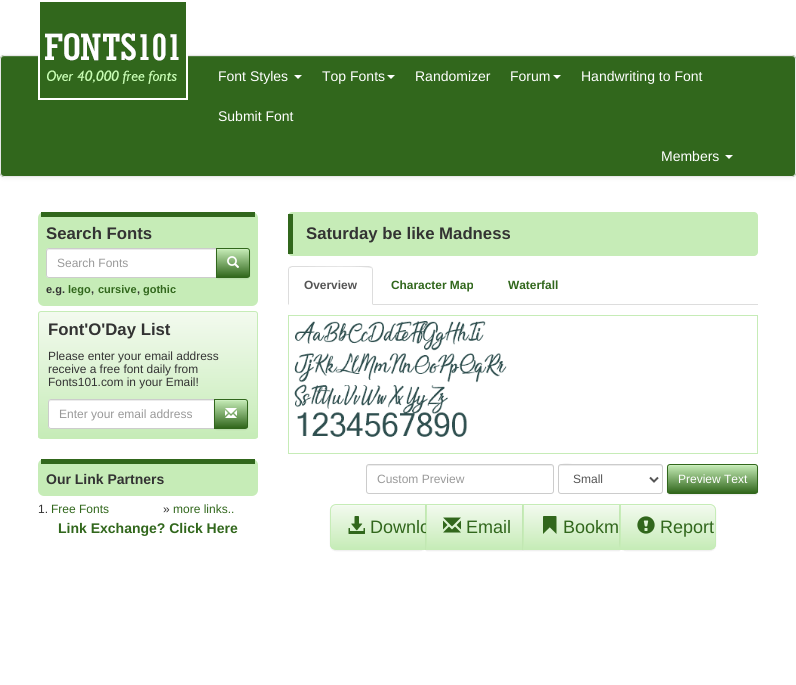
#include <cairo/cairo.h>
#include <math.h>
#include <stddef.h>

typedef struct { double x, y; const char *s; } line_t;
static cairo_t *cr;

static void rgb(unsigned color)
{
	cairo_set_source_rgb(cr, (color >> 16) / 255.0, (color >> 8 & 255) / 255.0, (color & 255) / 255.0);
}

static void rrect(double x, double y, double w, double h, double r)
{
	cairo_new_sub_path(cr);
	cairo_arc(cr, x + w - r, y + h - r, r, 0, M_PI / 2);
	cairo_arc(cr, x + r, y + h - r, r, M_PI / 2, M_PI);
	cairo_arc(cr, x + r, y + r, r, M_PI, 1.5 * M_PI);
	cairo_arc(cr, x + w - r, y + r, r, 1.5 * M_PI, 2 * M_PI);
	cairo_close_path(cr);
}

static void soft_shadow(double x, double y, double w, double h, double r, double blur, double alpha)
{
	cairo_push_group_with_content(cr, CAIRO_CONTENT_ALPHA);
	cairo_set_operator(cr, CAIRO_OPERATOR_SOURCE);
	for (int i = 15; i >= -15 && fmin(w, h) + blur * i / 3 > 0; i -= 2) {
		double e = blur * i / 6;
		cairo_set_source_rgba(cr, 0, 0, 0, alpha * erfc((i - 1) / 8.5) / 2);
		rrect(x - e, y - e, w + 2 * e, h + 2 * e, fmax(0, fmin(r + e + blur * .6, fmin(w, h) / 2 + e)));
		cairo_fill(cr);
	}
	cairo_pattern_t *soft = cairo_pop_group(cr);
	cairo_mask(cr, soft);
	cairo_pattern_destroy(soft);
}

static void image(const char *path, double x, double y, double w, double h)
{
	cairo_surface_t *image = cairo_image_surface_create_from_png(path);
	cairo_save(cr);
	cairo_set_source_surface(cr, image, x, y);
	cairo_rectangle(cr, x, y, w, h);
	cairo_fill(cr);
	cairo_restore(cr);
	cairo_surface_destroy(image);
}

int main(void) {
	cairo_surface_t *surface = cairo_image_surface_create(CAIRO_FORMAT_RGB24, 796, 685);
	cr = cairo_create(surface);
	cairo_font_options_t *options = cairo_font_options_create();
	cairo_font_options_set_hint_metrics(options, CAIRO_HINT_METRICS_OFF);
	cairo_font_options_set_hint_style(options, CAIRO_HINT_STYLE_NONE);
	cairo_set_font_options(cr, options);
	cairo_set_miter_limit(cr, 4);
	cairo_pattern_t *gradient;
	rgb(0xffffff);
	cairo_paint(cr);
	rgb(0x000000);
	soft_shadow(0, 56, 796, 122, 4, 2.5, 0.07);
	rgb(0x31671c);
	rrect(0, 55, 796, 122, 4);
	cairo_fill(cr);
	rgb(0x507e3e);
	cairo_new_path(cr);
	cairo_move_to(cr, 4, 57);
	cairo_line_to(cr, 792, 57);
	cairo_curve_to(cr, 794, 57, 795, 58, 795, 60);
	cairo_curve_to(cr, 795, 58, 794, 56, 792, 56);
	cairo_line_to(cr, 4, 56);
	cairo_curve_to(cr, 2, 56, 1, 58, 1, 60);
	cairo_curve_to(cr, 1, 58, 2, 57, 4, 57);
	cairo_close_path(cr);
	cairo_fill(cr);
	rrect(0.5, 55.5, 795, 121, 3.5);
	rgb(0xe7e7e7);
	cairo_set_line_width(cr, 1);
	cairo_stroke(cr);
	image("img/1.png", 38, 2, 150, 98);
	rgb(0xffffff);
	cairo_new_path(cr);
	cairo_move_to(cr, 294, 75);
	cairo_line_to(cr, 302, 75);
	cairo_line_to(cr, 298, 79);
	cairo_close_path(cr);
	cairo_fill(cr);
	cairo_new_path(cr);
	cairo_move_to(cr, 387, 75);
	cairo_line_to(cr, 395, 75);
	cairo_line_to(cr, 391, 79);
	cairo_close_path(cr);
	cairo_fill(cr);
	cairo_new_path(cr);
	cairo_move_to(cr, 553, 75);
	cairo_line_to(cr, 561, 75);
	cairo_line_to(cr, 557, 79);
	cairo_close_path(cr);
	cairo_fill(cr);
	cairo_new_path(cr);
	cairo_move_to(cr, 725, 155);
	cairo_line_to(cr, 733, 155);
	cairo_line_to(cr, 729, 159);
	cairo_close_path(cr);
	cairo_fill(cr);
	rgb(0xc6ecb7);
	rrect(38, 212, 220, 94, 6);
	cairo_fill(cr);
	rgb(0x31671c);
	cairo_rectangle(cr, 41, 212, 214, 5);
	cairo_fill(cr);
	rgb(0xffffff);
	cairo_new_path(cr);
	cairo_move_to(cr, 49, 248);
	cairo_line_to(cr, 217, 248);
	cairo_line_to(cr, 217, 278);
	cairo_line_to(cr, 49, 278);
	cairo_curve_to(cr, 47.5, 278, 46, 276.5, 46, 275);
	cairo_line_to(cr, 46, 251);
	cairo_curve_to(cr, 46, 249.5, 47.5, 248, 49, 248);
	cairo_close_path(cr);
	cairo_fill(cr);
	rgb(0xececec);
	cairo_new_path(cr);
	cairo_move_to(cr, 49, 250);
	cairo_line_to(cr, 216, 250);
	cairo_line_to(cr, 216, 249);
	cairo_line_to(cr, 49, 249);
	cairo_curve_to(cr, 47, 249, 47, 251, 47, 252);
	cairo_curve_to(cr, 47, 251, 48, 250, 49, 250);
	cairo_close_path(cr);
	cairo_fill(cr);
	cairo_new_path(cr);
	cairo_move_to(cr, 49, 248.5);
	cairo_line_to(cr, 216.5, 248.5);
	cairo_line_to(cr, 216.5, 277.5);
	cairo_line_to(cr, 49, 277.5);
	cairo_curve_to(cr, 47.5, 277.5, 46.5, 276.5, 46.5, 275);
	cairo_line_to(cr, 46.5, 251);
	cairo_curve_to(cr, 46.5, 249.5, 47.5, 248.5, 49, 248.5);
	cairo_close_path(cr);
	rgb(0xcccccc);
	cairo_stroke(cr);
	rgb(0x000000);
	soft_shadow(216, 249, 34, 30, 3, 0.5, 0.07);
	cairo_save(cr);
	cairo_new_path(cr);
	cairo_move_to(cr, 216, 248);
	cairo_line_to(cr, 247, 248);
	cairo_curve_to(cr, 248.5, 248, 250, 249.5, 250, 251);
	cairo_line_to(cr, 250, 275);
	cairo_curve_to(cr, 250, 276.5, 248.5, 278, 247, 278);
	cairo_line_to(cr, 216, 278);
	cairo_close_path(cr);
	cairo_clip(cr);
	gradient = cairo_pattern_create_linear(233, 249, 233, 277);
	cairo_pattern_add_color_stop_rgba(gradient, 0, 0.776, 0.925, 0.718, 1);
	cairo_pattern_add_color_stop_rgba(gradient, 1, 0.192, 0.404, 0.11, 1);
	cairo_set_source(cr, gradient);
	cairo_pattern_destroy(gradient);
	cairo_rectangle(cr, 217, 249, 33, 28);
	cairo_fill(cr);
	cairo_restore(cr);
	cairo_set_source_rgba(cr, 1, 1, 1, 0.15);
	cairo_new_path(cr);
	cairo_move_to(cr, 217, 250);
	cairo_line_to(cr, 247, 250);
	cairo_curve_to(cr, 248, 250, 249, 251, 249, 252);
	cairo_line_to(cr, 249, 251);
	cairo_curve_to(cr, 249, 250, 248, 249, 247, 249);
	cairo_line_to(cr, 217, 249);
	cairo_close_path(cr);
	cairo_fill(cr);
	cairo_new_path(cr);
	cairo_move_to(cr, 216.5, 248.5);
	cairo_line_to(cr, 247, 248.5);
	cairo_curve_to(cr, 248.5, 248.5, 249.5, 249.5, 249.5, 251);
	cairo_line_to(cr, 249.5, 275);
	cairo_curve_to(cr, 249.5, 276.5, 248.5, 277.5, 247, 277.5);
	cairo_line_to(cr, 216.5, 277.5);
	cairo_close_path(cr);
	rgb(0x31671c);
	cairo_stroke(cr);
	image("img/2.png", 227, 256, 12, 12);
	cairo_save(cr);
	rrect(38, 311, 220, 128, 3);
	cairo_clip(cr);
	gradient = cairo_pattern_create_linear(148, 312, 148, 438);
	cairo_pattern_add_color_stop_rgba(gradient, 0, 0.953, 0.98, 0.937, 1);
	cairo_pattern_add_color_stop_rgba(gradient, 1, 0.776, 0.925, 0.718, 1);
	cairo_set_source(cr, gradient);
	cairo_pattern_destroy(gradient);
	cairo_rectangle(cr, 38, 312, 220, 126);
	cairo_fill(cr);
	cairo_restore(cr);
	rrect(38.5, 311.5, 219, 127, 2.5);
	rgb(0xc6ecb7);
	cairo_stroke(cr);
	rgb(0xffffff);
	cairo_new_path(cr);
	cairo_move_to(cr, 51, 399);
	cairo_line_to(cr, 215, 399);
	cairo_line_to(cr, 215, 429);
	cairo_line_to(cr, 51, 429);
	cairo_curve_to(cr, 49.5, 429, 48, 427.5, 48, 426);
	cairo_line_to(cr, 48, 402);
	cairo_curve_to(cr, 48, 400.5, 49.5, 399, 51, 399);
	cairo_close_path(cr);
	cairo_fill(cr);
	rgb(0xececec);
	cairo_new_path(cr);
	cairo_move_to(cr, 51, 401);
	cairo_line_to(cr, 214, 401);
	cairo_line_to(cr, 214, 400);
	cairo_line_to(cr, 51, 400);
	cairo_curve_to(cr, 49, 400, 49, 402, 49, 403);
	cairo_curve_to(cr, 49, 402, 50, 401, 51, 401);
	cairo_close_path(cr);
	cairo_fill(cr);
	cairo_new_path(cr);
	cairo_move_to(cr, 51, 399.5);
	cairo_line_to(cr, 214.5, 399.5);
	cairo_line_to(cr, 214.5, 428.5);
	cairo_line_to(cr, 51, 428.5);
	cairo_curve_to(cr, 49.5, 428.5, 48.5, 427.5, 48.5, 426);
	cairo_line_to(cr, 48.5, 402);
	cairo_curve_to(cr, 48.5, 400.5, 49.5, 399.5, 51, 399.5);
	cairo_close_path(cr);
	rgb(0xcccccc);
	cairo_stroke(cr);
	rgb(0x000000);
	soft_shadow(214, 400, 34, 30, 3, 0.5, 0.07);
	cairo_save(cr);
	cairo_new_path(cr);
	cairo_move_to(cr, 214, 399);
	cairo_line_to(cr, 245, 399);
	cairo_curve_to(cr, 246.5, 399, 248, 400.5, 248, 402);
	cairo_line_to(cr, 248, 426);
	cairo_curve_to(cr, 248, 427.5, 246.5, 429, 245, 429);
	cairo_line_to(cr, 214, 429);
	cairo_close_path(cr);
	cairo_clip(cr);
	gradient = cairo_pattern_create_linear(231, 400, 231, 428);
	cairo_pattern_add_color_stop_rgba(gradient, 0, 0.776, 0.925, 0.718, 1);
	cairo_pattern_add_color_stop_rgba(gradient, 1, 0.192, 0.404, 0.11, 1);
	cairo_set_source(cr, gradient);
	cairo_pattern_destroy(gradient);
	cairo_rectangle(cr, 215, 400, 33, 28);
	cairo_fill(cr);
	cairo_restore(cr);
	cairo_set_source_rgba(cr, 1, 1, 1, 0.15);
	cairo_new_path(cr);
	cairo_move_to(cr, 215, 401);
	cairo_line_to(cr, 245, 401);
	cairo_curve_to(cr, 246, 401, 247, 402, 247, 403);
	cairo_line_to(cr, 247, 402);
	cairo_curve_to(cr, 247, 401, 246, 400, 245, 400);
	cairo_line_to(cr, 215, 400);
	cairo_close_path(cr);
	cairo_fill(cr);
	cairo_new_path(cr);
	cairo_move_to(cr, 214.5, 399.5);
	cairo_line_to(cr, 245, 399.5);
	cairo_curve_to(cr, 246.5, 399.5, 247.5, 400.5, 247.5, 402);
	cairo_line_to(cr, 247.5, 426);
	cairo_curve_to(cr, 247.5, 427.5, 246.5, 428.5, 245, 428.5);
	cairo_line_to(cr, 214.5, 428.5);
	cairo_close_path(cr);
	rgb(0x31671c);
	cairo_stroke(cr);
	image("img/3.png", 225, 408, 12, 10);
	rgb(0xc6ecb7);
	rrect(38, 459, 220, 37, 6);
	cairo_fill(cr);
	rgb(0x31671c);
	cairo_rectangle(cr, 41, 459, 214, 5);
	cairo_fill(cr);
	rgb(0xc6ecb7);
	rrect(288, 212, 470, 44, 4);
	cairo_fill(cr);
	rgb(0x31671c);
	cairo_rectangle(cr, 288, 214, 5, 40);
	cairo_fill(cr);
	rgb(0xdddddd);
	cairo_rectangle(cr, 373, 304, 385, 1);
	cairo_fill(cr);
	cairo_new_path(cr);
	cairo_move_to(cr, 292, 266);
	cairo_line_to(cr, 289, 267);
	cairo_line_to(cr, 290, 268);
	cairo_line_to(cr, 292, 267);
	cairo_line_to(cr, 305, 267);
	cairo_curve_to(cr, 312, 267, 369, 266, 371, 268);
	cairo_line_to(cr, 372, 267);
	cairo_line_to(cr, 369, 266);
	cairo_close_path(cr);
	cairo_fill(cr);
	cairo_new_path(cr);
	cairo_move_to(cr, 373, 305);
	cairo_line_to(cr, 373, 270);
	cairo_curve_to(cr, 373, 269, 372.5, 268, 372, 267);
	cairo_line_to(cr, 371, 268);
	cairo_curve_to(cr, 372, 268, 372, 269, 372, 270);
	cairo_line_to(cr, 372, 304);
	cairo_close_path(cr);
	cairo_fill(cr);
	cairo_new_path(cr);
	cairo_move_to(cr, 288, 305);
	cairo_line_to(cr, 289, 304);
	cairo_line_to(cr, 289, 270);
	cairo_curve_to(cr, 289, 269, 289, 268, 290, 268);
	cairo_line_to(cr, 289, 267);
	cairo_curve_to(cr, 288.5, 268, 288, 269, 288, 270);
	cairo_close_path(cr);
	cairo_fill(cr);
	cairo_rectangle(cr, 288.5, 315.5, 469, 138);
	rgb(0xc6ecb7);
	cairo_stroke(cr);
	image("img/4.png", 294, 321, 213, 116);
	rgb(0xececec);
	cairo_new_path(cr);
	cairo_move_to(cr, 369, 466);
	cairo_line_to(cr, 551, 466);
	cairo_curve_to(cr, 552, 466, 553, 467, 553, 468);
	cairo_line_to(cr, 553, 467);
	cairo_curve_to(cr, 553, 466, 552, 465, 551, 465);
	cairo_line_to(cr, 369, 465);
	cairo_curve_to(cr, 368, 465, 367, 466, 367, 467);
	cairo_line_to(cr, 367, 468);
	cairo_curve_to(cr, 367, 467, 368, 466, 369, 466);
	cairo_close_path(cr);
	cairo_fill(cr);
	rrect(366.5, 464.5, 187, 29, 2.5);
	rgb(0xcccccc);
	cairo_stroke(cr);
	rgb(0xececec);
	cairo_new_path(cr);
	cairo_move_to(cr, 561, 466);
	cairo_line_to(cr, 660, 466);
	cairo_curve_to(cr, 661, 466, 662, 467, 662, 468);
	cairo_curve_to(cr, 662, 467, 662, 465, 660, 465);
	cairo_line_to(cr, 578, 465);
	cairo_curve_to(cr, 576, 465, 559, 460, 559, 468);
	cairo_curve_to(cr, 559, 467, 560, 466, 561, 466);
	cairo_close_path(cr);
	cairo_fill(cr);
	rrect(558.5, 464.5, 104, 29, 2.5);
	rgb(0xcccccc);
	cairo_stroke(cr);
	cairo_new_path(cr);
	cairo_move_to(cr, 650, 477.5);
	cairo_line_to(cr, 654, 481.5);
	cairo_line_to(cr, 658, 477.5);
	rgb(0x555555);
	cairo_set_line_width(cr, 2);
	cairo_stroke(cr);
	rgb(0x000000);
	soft_shadow(667, 465, 91, 30, 3, 0.5, 0.07);
	cairo_save(cr);
	rrect(667, 464, 91, 30, 3);
	cairo_clip(cr);
	gradient = cairo_pattern_create_linear(713, 465, 713, 493);
	cairo_pattern_add_color_stop_rgba(gradient, 0, 0.776, 0.925, 0.718, 1);
	cairo_pattern_add_color_stop_rgba(gradient, 1, 0.192, 0.404, 0.11, 1);
	cairo_set_source(cr, gradient);
	cairo_pattern_destroy(gradient);
	cairo_rectangle(cr, 667, 465, 91, 28);
	cairo_fill(cr);
	cairo_restore(cr);
	cairo_set_source_rgba(cr, 1, 1, 1, 0.15);
	cairo_new_path(cr);
	cairo_move_to(cr, 670, 466);
	cairo_line_to(cr, 755, 466);
	cairo_curve_to(cr, 756, 466, 757, 467, 757, 468);
	cairo_curve_to(cr, 757, 461, 743, 465, 741, 465);
	cairo_line_to(cr, 684, 465);
	cairo_curve_to(cr, 682, 465, 668, 461, 668, 468);
	cairo_curve_to(cr, 668, 467, 669, 466, 670, 466);
	cairo_close_path(cr);
	cairo_fill(cr);
	rrect(667.5, 464.5, 90, 29, 2.5);
	rgb(0x31671c);
	cairo_set_line_width(cr, 1);
	cairo_stroke(cr);
	rgb(0x000000);
	soft_shadow(330, 505, 96, 46, 6, 0.5, 0.07);
	cairo_save(cr);
	cairo_new_path(cr);
	cairo_move_to(cr, 336, 504);
	cairo_line_to(cr, 426, 504);
	cairo_line_to(cr, 426, 550);
	cairo_line_to(cr, 336, 550);
	cairo_curve_to(cr, 332.5, 550, 330, 547.5, 330, 544);
	cairo_line_to(cr, 330, 510);
	cairo_curve_to(cr, 330, 506.5, 332.5, 504, 336, 504);
	cairo_close_path(cr);
	cairo_clip(cr);
	gradient = cairo_pattern_create_linear(378, 505, 378, 549);
	cairo_pattern_add_color_stop_rgba(gradient, 0, 0.953, 0.98, 0.937, 1);
	cairo_pattern_add_color_stop_rgba(gradient, 1, 0.776, 0.925, 0.718, 1);
	cairo_set_source(cr, gradient);
	cairo_pattern_destroy(gradient);
	cairo_rectangle(cr, 330, 505, 95, 44);
	cairo_fill(cr);
	cairo_restore(cr);
	rgb(0xf4fbf1);
	cairo_new_path(cr);
	cairo_move_to(cr, 336, 506);
	cairo_line_to(cr, 425, 506);
	cairo_line_to(cr, 425, 505);
	cairo_line_to(cr, 336, 505);
	cairo_curve_to(cr, 333, 505, 331, 507, 331, 510);
	cairo_line_to(cr, 331, 511);
	cairo_curve_to(cr, 331, 508, 333, 506, 336, 506);
	cairo_close_path(cr);
	cairo_fill(cr);
	cairo_new_path(cr);
	cairo_move_to(cr, 336, 504.5);
	cairo_line_to(cr, 425.5, 504.5);
	cairo_line_to(cr, 425.5, 549.5);
	cairo_line_to(cr, 336, 549.5);
	cairo_curve_to(cr, 333, 549.5, 330.5, 547, 330.5, 544);
	cairo_line_to(cr, 330.5, 510);
	cairo_curve_to(cr, 330.5, 507, 333, 504.5, 336, 504.5);
	cairo_close_path(cr);
	rgb(0xc6ecb7);
	cairo_stroke(cr);
	image("img/5.png", 348, 516, 17, 18);
	rgb(0x000000);
	soft_shadow(426, 505, 97, 46, 0, 0.5, 0.07);
	rgb(0xf4fbf1);
	cairo_rectangle(cr, 427, 505, 95, 1);
	cairo_fill(cr);
	cairo_select_font_face(cr, "Liberation Sans", CAIRO_FONT_SLANT_NORMAL, CAIRO_FONT_WEIGHT_NORMAL);
	cairo_set_font_size(cr, 14);
	rgb(0xffffff);
	{
		static const line_t items[] = {
			{218, 81, "Font Styles"},
			{322, 81, "Top Fonts"},
			{415, 81, "Randomizer"},
			{510, 81, "Forum"},
			{581, 81, "Handwriting to Font"},
			{218, 121, "Submit Font"},
			{661, 161, "Members"},
		};
		for (size_t i = 0; i < sizeof items / sizeof *items; i++) {
			cairo_move_to(cr, items[i].x, items[i].y);
			cairo_show_text(cr, items[i].s);
		}
	}
	cairo_select_font_face(cr, "Liberation Sans", CAIRO_FONT_SLANT_NORMAL, CAIRO_FONT_WEIGHT_BOLD);
	cairo_set_font_size(cr, 16.75);
	rgb(0x333333);
	cairo_move_to(cr, 46, 239);
	cairo_show_text(cr, "Search Fonts");
	cairo_select_font_face(cr, "Liberation Sans", CAIRO_FONT_SLANT_NORMAL, CAIRO_FONT_WEIGHT_NORMAL);
	cairo_set_font_size(cr, 12);
	rgb(0x999999);
	cairo_move_to(cr, 57, 267);
	cairo_show_text(cr, "Search Fonts");
	cairo_select_font_face(cr, "Liberation Sans", CAIRO_FONT_SLANT_NORMAL, CAIRO_FONT_WEIGHT_BOLD);
	cairo_set_font_size(cr, 11);
	rgb(0x333333);
	cairo_move_to(cr, 46, 293);
	cairo_show_text(cr, "e.g.");
	rgb(0x31671c);
	cairo_move_to(cr, 68, 293);
	cairo_show_text(cr, "lego");
	rgb(0x333333);
	cairo_move_to(cr, 91, 293);
	cairo_show_text(cr, ",");
	rgb(0x31671c);
	cairo_move_to(cr, 98, 293);
	cairo_show_text(cr, "cursive");
	rgb(0x333333);
	cairo_move_to(cr, 137, 293);
	cairo_show_text(cr, ",");
	rgb(0x31671c);
	cairo_move_to(cr, 143, 293);
	cairo_show_text(cr, "gothic");
	cairo_set_font_size(cr, 16.75);
	rgb(0x333333);
	cairo_move_to(cr, 48, 335);
	cairo_show_text(cr, "Font'O'Day List");
	cairo_select_font_face(cr, "Liberation Sans", CAIRO_FONT_SLANT_NORMAL, CAIRO_FONT_WEIGHT_NORMAL);
	cairo_set_font_size(cr, 11.9);
	{
		static const line_t items[] = {
			{48, 360, "Please enter your email address"},
			{48, 373, "receive a free font daily from"},
			{48, 386, "Fonts101.com in your Email!"},
		};
		for (size_t i = 0; i < sizeof items / sizeof *items; i++) {
			cairo_move_to(cr, items[i].x, items[i].y);
			cairo_show_text(cr, items[i].s);
		}
	}
	cairo_set_font_size(cr, 12);
	rgb(0x999999);
	cairo_move_to(cr, 59, 418);
	cairo_show_text(cr, "Enter your email address");
	cairo_select_font_face(cr, "Liberation Sans", CAIRO_FONT_SLANT_NORMAL, CAIRO_FONT_WEIGHT_BOLD);
	cairo_set_font_size(cr, 14);
	rgb(0x333333);
	cairo_move_to(cr, 46, 484);
	cairo_show_text(cr, "Our Link Partners");
	cairo_select_font_face(cr, "Liberation Sans", CAIRO_FONT_SLANT_NORMAL, CAIRO_FONT_WEIGHT_NORMAL);
	cairo_set_font_size(cr, 12);
	cairo_move_to(cr, 38, 513);
	cairo_show_text(cr, "1.");
	rgb(0x31671c);
	cairo_move_to(cr, 51, 513);
	cairo_show_text(cr, "Free Fonts");
	rgb(0x333333);
	cairo_move_to(cr, 163, 513);
	cairo_show_text(cr, "»");
	rgb(0x31671c);
	cairo_move_to(cr, 173, 513);
	cairo_show_text(cr, "more links..");
	cairo_select_font_face(cr, "Liberation Sans", CAIRO_FONT_SLANT_NORMAL, CAIRO_FONT_WEIGHT_BOLD);
	cairo_set_font_size(cr, 14);
	cairo_move_to(cr, 58, 533);
	cairo_show_text(cr, "Link Exchange? Click Here");
	cairo_set_font_size(cr, 16.75);
	rgb(0x333333);
	cairo_move_to(cr, 306, 239);
	cairo_show_text(cr, "Saturday be like Madness");
	cairo_set_font_size(cr, 11.9);
	rgb(0x555555);
	cairo_move_to(cr, 304, 289);
	cairo_show_text(cr, "Overview");
	rgb(0x31671c);
	cairo_move_to(cr, 391, 289);
	cairo_show_text(cr, "Character Map");
	cairo_move_to(cr, 508, 289);
	cairo_show_text(cr, "Waterfall");
	cairo_select_font_face(cr, "Liberation Sans", CAIRO_FONT_SLANT_NORMAL, CAIRO_FONT_WEIGHT_NORMAL);
	cairo_set_font_size(cr, 12);
	rgb(0x999999);
	cairo_move_to(cr, 377, 483);
	cairo_show_text(cr, "Custom Preview");
	rgb(0x555555);
	cairo_move_to(cr, 573, 483);
	cairo_show_text(cr, "Small");
	rgb(0xffffff);
	cairo_move_to(cr, 678, 483);
	cairo_show_text(cr, "Preview Text");
	cairo_set_font_size(cr, 18);
	rgb(0x31671c);
	cairo_move_to(cr, 370, 533);
	cairo_show_text(cr, "Downlo");
	gradient = cairo_pattern_create_linear(475, 505, 475, 549);
	cairo_pattern_add_color_stop_rgba(gradient, 0, 0.953, 0.98, 0.937, 1);
	cairo_pattern_add_color_stop_rgba(gradient, 1, 0.776, 0.925, 0.718, 1);
	cairo_set_source(cr, gradient);
	cairo_pattern_destroy(gradient);
	cairo_rectangle(cr, 427, 506, 95, 43);
	cairo_fill(cr);
	cairo_rectangle(cr, 426.5, 504.5, 96, 45);
	rgb(0xc6ecb7);
	cairo_stroke(cr);
	image("img/6.png", 443, 517, 18, 16);
	rgb(0x31671c);
	cairo_move_to(cr, 466, 533);
	cairo_show_text(cr, "Email");
	rgb(0x000000);
	soft_shadow(523, 505, 97, 46, 0, 0.5, 0.07);
	gradient = cairo_pattern_create_linear(572, 505, 572, 549);
	cairo_pattern_add_color_stop_rgba(gradient, 0, 0.953, 0.98, 0.937, 1);
	cairo_pattern_add_color_stop_rgba(gradient, 1, 0.776, 0.925, 0.718, 1);
	cairo_set_source(cr, gradient);
	cairo_pattern_destroy(gradient);
	cairo_rectangle(cr, 524, 506, 95, 43);
	cairo_fill(cr);
	rgb(0xf4fbf1);
	cairo_rectangle(cr, 524, 505, 95, 1);
	cairo_fill(cr);
	cairo_rectangle(cr, 523.5, 504.5, 96, 45);
	rgb(0xc6ecb7);
	cairo_stroke(cr);
	image("img/7.png", 543, 516, 14, 18);
	rgb(0x31671c);
	cairo_move_to(cr, 563, 533);
	cairo_show_text(cr, "Bookm");
	rgb(0x000000);
	soft_shadow(620, 505, 96, 46, 6, 0.5, 0.07);
	cairo_save(cr);
	cairo_new_path(cr);
	cairo_move_to(cr, 620, 504);
	cairo_line_to(cr, 710, 504);
	cairo_curve_to(cr, 713.5, 504, 716, 506.5, 716, 510);
	cairo_line_to(cr, 716, 544);
	cairo_curve_to(cr, 716, 547.5, 713.5, 550, 710, 550);
	cairo_line_to(cr, 620, 550);
	cairo_close_path(cr);
	cairo_clip(cr);
	gradient = cairo_pattern_create_linear(668, 505, 668, 549);
	cairo_pattern_add_color_stop_rgba(gradient, 0, 0.953, 0.98, 0.937, 1);
	cairo_pattern_add_color_stop_rgba(gradient, 1, 0.776, 0.925, 0.718, 1);
	cairo_set_source(cr, gradient);
	cairo_pattern_destroy(gradient);
	cairo_rectangle(cr, 621, 505, 95, 44);
	cairo_fill(cr);
	cairo_restore(cr);
	rgb(0xf4fbf1);
	cairo_new_path(cr);
	cairo_move_to(cr, 621, 506);
	cairo_line_to(cr, 710, 506);
	cairo_curve_to(cr, 713, 506, 715, 508, 715, 511);
	cairo_line_to(cr, 715, 510);
	cairo_curve_to(cr, 715, 507, 713, 505, 710, 505);
	cairo_line_to(cr, 621, 505);
	cairo_close_path(cr);
	cairo_fill(cr);
	cairo_new_path(cr);
	cairo_move_to(cr, 620.5, 504.5);
	cairo_line_to(cr, 710, 504.5);
	cairo_curve_to(cr, 713, 504.5, 715.5, 507, 715.5, 510);
	cairo_line_to(cr, 715.5, 544);
	cairo_curve_to(cr, 715.5, 547, 713, 549.5, 710, 549.5);
	cairo_line_to(cr, 620.5, 549.5);
	cairo_close_path(cr);
	rgb(0xc6ecb7);
	cairo_stroke(cr);
	image("img/8.png", 637, 516, 18, 18);
	rgb(0x31671c);
	cairo_move_to(cr, 660, 533);
	cairo_show_text(cr, "Report");
	cairo_surface_write_to_png(surface, "page.png");
	cairo_font_options_destroy(options);
	cairo_destroy(cr);
	cairo_surface_destroy(surface);
	return 0;
}
